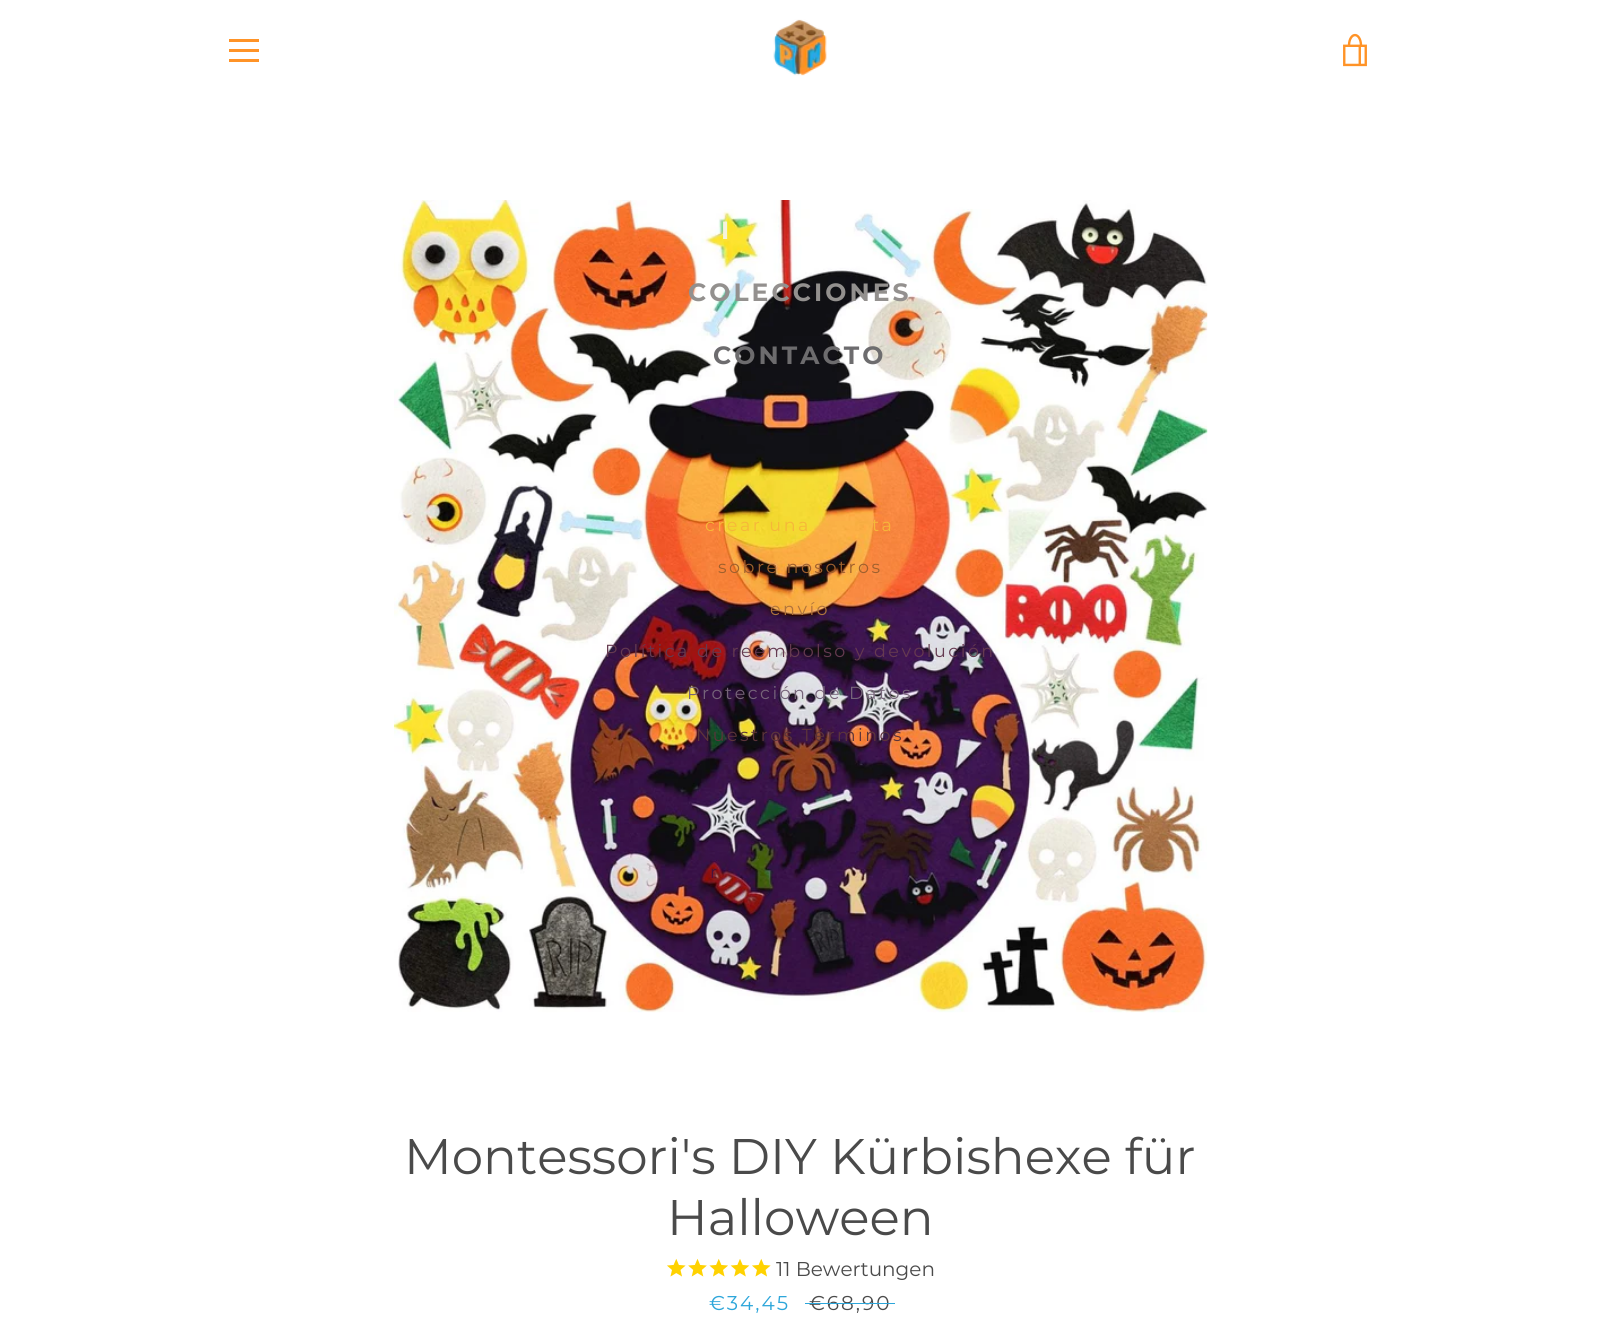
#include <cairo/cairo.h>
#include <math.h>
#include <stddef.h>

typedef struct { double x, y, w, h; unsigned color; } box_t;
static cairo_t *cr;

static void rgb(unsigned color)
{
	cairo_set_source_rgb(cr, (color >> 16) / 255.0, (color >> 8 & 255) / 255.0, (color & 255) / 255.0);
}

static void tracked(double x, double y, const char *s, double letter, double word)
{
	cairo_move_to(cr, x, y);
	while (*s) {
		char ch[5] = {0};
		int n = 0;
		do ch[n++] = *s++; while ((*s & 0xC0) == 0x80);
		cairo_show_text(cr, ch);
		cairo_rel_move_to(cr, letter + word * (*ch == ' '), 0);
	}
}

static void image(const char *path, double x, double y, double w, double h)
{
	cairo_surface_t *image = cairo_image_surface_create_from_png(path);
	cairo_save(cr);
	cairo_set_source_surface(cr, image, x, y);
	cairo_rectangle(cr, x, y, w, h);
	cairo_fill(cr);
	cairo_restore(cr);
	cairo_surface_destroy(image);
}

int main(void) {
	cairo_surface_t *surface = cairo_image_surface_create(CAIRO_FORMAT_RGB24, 1599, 1322);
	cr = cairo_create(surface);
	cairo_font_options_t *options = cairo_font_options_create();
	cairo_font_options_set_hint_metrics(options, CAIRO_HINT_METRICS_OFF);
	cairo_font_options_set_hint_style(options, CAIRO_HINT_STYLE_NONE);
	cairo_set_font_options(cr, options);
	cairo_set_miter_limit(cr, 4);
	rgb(0xffffff);
	cairo_paint(cr);
	image("img/1.png", 773, 19, 54, 57);
	image("img/2.png", 1343, 33, 24, 34);
	{
		static const box_t items[] = {
			{229, 39, 30, 3, 0xff9327},
			{229, 49, 30, 3, 0xff9327},
			{229, 59, 30, 3, 0xff9327},
		};
		for (size_t i = 0; i < sizeof items / sizeof *items; i++) {
			rgb(items[i].color);
			cairo_rectangle(cr, items[i].x, items[i].y, items[i].w, items[i].h);
			cairo_fill(cr);
		}
	}
	image("img/3.png", 393, 200, 815, 813);
	image("img/4.png", 667, 1258, 19, 19);
	image("img/5.png", 688, 1258, 19, 19);
	image("img/6.png", 709, 1258, 19, 19);
	image("img/7.png", 730, 1259, 20, 18);
	image("img/4.png", 752, 1258, 19, 19);
	cairo_select_font_face(cr, "Montserrat", CAIRO_FONT_SLANT_NORMAL, CAIRO_FONT_WEIGHT_BOLD);
	cairo_set_font_size(cr, 25);
	rgb(0xf5f3dc);
	tracked(721, 239, "I", 3.1, 0);
	rgb(0x93908e);
	tracked(688, 301, "COLECCIONES", 3.1, 0);
	rgb(0x6d6c6e);
	tracked(713, 364, "CONTACTO", 3.1, 0);
	cairo_select_font_face(cr, "Montserrat", CAIRO_FONT_SLANT_NORMAL, CAIRO_FONT_WEIGHT_NORMAL);
	cairo_set_font_size(cr, 17.5);
	rgb(0xf6b739);
	tracked(705, 531, "crear una", 2.5, 0);
	tracked(872, 531, "ta", 2.5, 0);
	rgb(0x9f602d);
	tracked(718, 573, "sobre nosotros", 2.5, 0);
	rgb(0xb0743c);
	tracked(770, 615, "envío", 2.5, 0);
	rgb(0x653a50);
	tracked(605, 657, "Política de reembolso y devolución", 2.5, 0);
	rgb(0x766479);
	tracked(687, 699, "Protección de Datos", 2.5, 0);
	rgb(0x5c343a);
	tracked(696, 741, "Nuestros Términos", 2.5, 0);
	rgb(0x47123b);
	cairo_move_to(cr, 710, 878);
	cairo_show_text(cr, "r");
	cairo_set_font_size(cr, 50);
	rgb(0x4a4a4a);
	cairo_move_to(cr, 404, 1174);
	cairo_show_text(cr, "Montessori's DIY Kürbishexe für");
	cairo_move_to(cr, 667, 1235);
	cairo_show_text(cr, "Halloween");
	cairo_set_font_size(cr, 20);
	cairo_move_to(cr, 776, 1276);
	cairo_show_text(cr, "11 Bewertungen");
	rgb(0x2da6da);
	tracked(709, 1310, "€34,45", 2, 0);
	rgb(0x4a4a4a);
	tracked(809, 1310, "€68,90", 2, 0);
	rgb(0x2da6da);
	cairo_rectangle(cr, 805, 1303, 90, 1);
	cairo_fill(cr);
	cairo_surface_write_to_png(surface, "page.png");
	cairo_font_options_destroy(options);
	cairo_destroy(cr);
	cairo_surface_destroy(surface);
	return 0;
}
